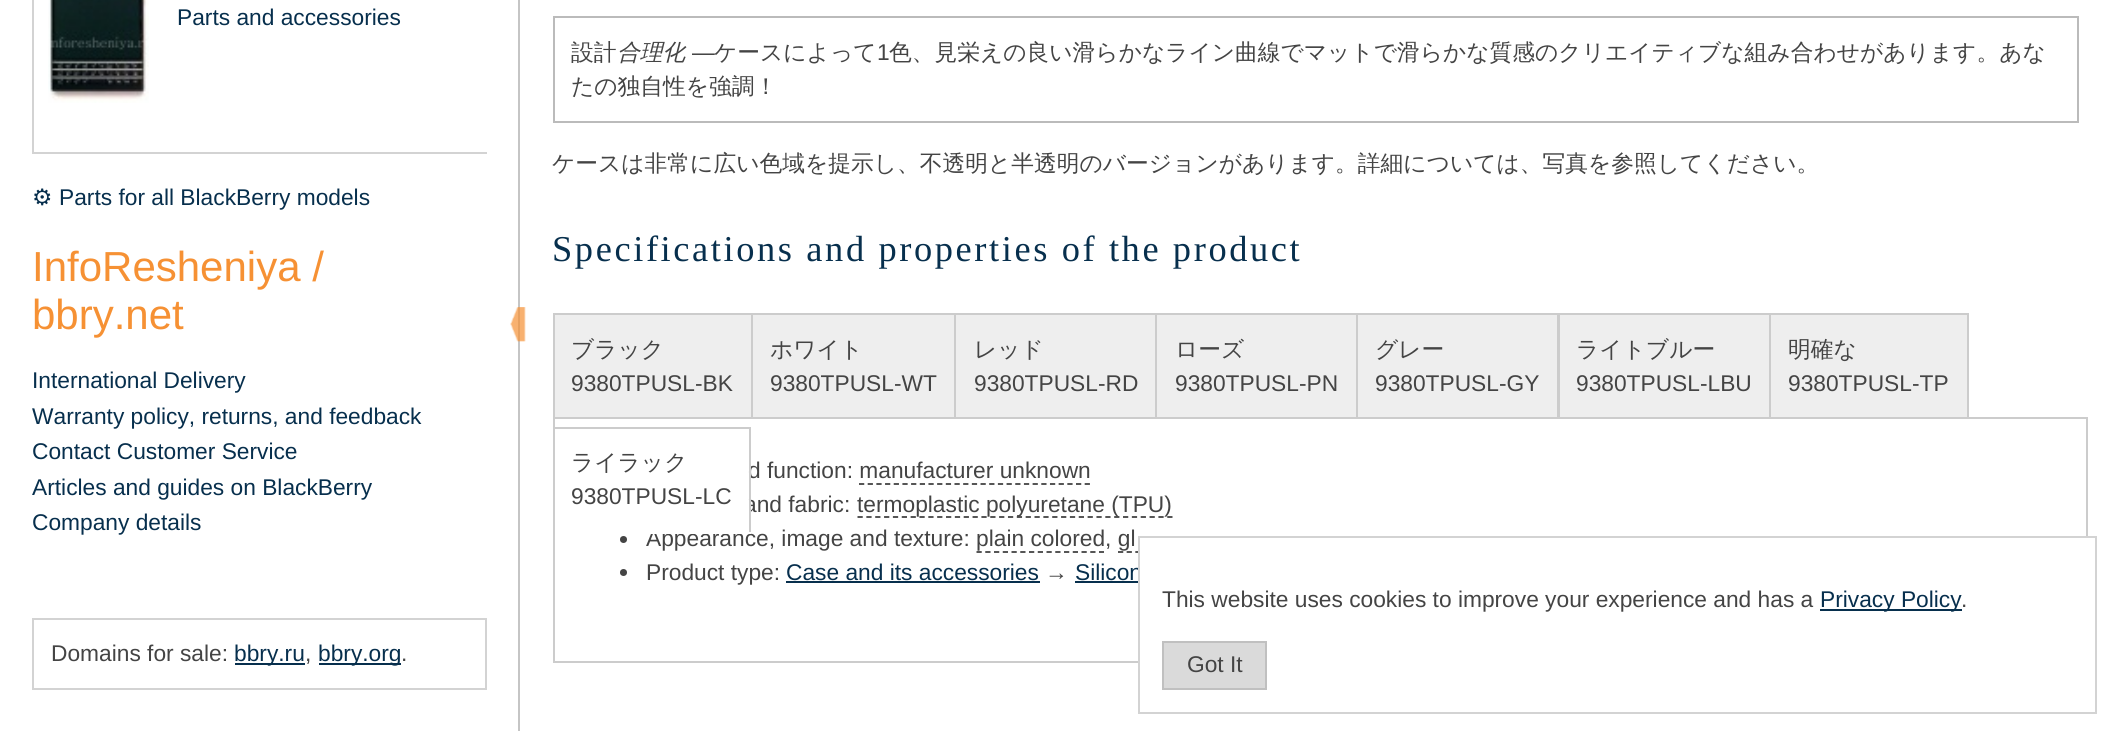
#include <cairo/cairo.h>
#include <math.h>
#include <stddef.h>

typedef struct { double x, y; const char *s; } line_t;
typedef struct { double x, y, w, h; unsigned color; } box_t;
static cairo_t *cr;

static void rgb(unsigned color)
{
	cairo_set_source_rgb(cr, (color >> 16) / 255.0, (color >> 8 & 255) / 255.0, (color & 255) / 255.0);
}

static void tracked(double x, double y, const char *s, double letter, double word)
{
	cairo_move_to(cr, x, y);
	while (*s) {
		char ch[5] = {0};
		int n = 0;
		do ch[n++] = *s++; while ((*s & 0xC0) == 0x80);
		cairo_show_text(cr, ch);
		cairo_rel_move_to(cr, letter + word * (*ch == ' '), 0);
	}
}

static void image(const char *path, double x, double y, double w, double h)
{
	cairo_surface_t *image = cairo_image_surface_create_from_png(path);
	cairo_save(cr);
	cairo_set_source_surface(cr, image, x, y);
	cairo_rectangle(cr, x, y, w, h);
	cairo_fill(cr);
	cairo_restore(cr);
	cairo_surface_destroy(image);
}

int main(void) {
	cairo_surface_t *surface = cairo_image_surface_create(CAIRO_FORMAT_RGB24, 2119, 731);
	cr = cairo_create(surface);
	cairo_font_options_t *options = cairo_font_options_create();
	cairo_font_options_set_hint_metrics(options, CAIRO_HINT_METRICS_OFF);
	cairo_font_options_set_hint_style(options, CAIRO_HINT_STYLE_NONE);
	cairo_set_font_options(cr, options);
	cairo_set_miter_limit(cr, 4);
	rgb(0xffffff);
	cairo_paint(cr);
	rgb(0xc5c5c5);
	cairo_rectangle(cr, 518, 0, 2, 731);
	cairo_fill(cr);
	cairo_save(cr);
	cairo_rectangle(cr, 32, 0, 455, 712);
	cairo_clip(cr);
	cairo_rectangle(cr, 33, -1, 456, 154);
	rgb(0xd3d3d3);
	cairo_stroke(cr);
	cairo_restore(cr);
	image("img/1.png", 48, 0, 101, 103);
	cairo_rectangle(cr, 33, 619, 453, 70);
	rgb(0xd3d3d3);
	cairo_stroke(cr);
	rgb(0x072f4d);
	cairo_rectangle(cr, 235, 663, 70, 2);
	cairo_fill(cr);
	cairo_rectangle(cr, 319, 663, 82, 2);
	cairo_fill(cr);
	image("img/2.png", 510, 307, 16, 35);
	cairo_rectangle(cr, 554, 17, 1524, 105);
	rgb(0xbbbbbb);
	cairo_stroke(cr);
	rgb(0xeeeeee);
	cairo_rectangle(cr, 555, 315, 196, 102);
	cairo_fill(cr);
	cairo_rectangle(cr, 554, 314, 198, 105);
	rgb(0xcccccc);
	cairo_stroke(cr);
	rgb(0xeeeeee);
	cairo_rectangle(cr, 753, 315, 201, 102);
	cairo_fill(cr);
	cairo_rectangle(cr, 752, 314, 203, 105);
	rgb(0xcccccc);
	cairo_stroke(cr);
	rgb(0xeeeeee);
	cairo_rectangle(cr, 956, 315, 199, 102);
	cairo_fill(cr);
	cairo_rectangle(cr, 955, 314, 201, 105);
	rgb(0xcccccc);
	cairo_stroke(cr);
	rgb(0xeeeeee);
	cairo_rectangle(cr, 1157, 315, 199, 102);
	cairo_fill(cr);
	cairo_rectangle(cr, 1156, 314, 201, 105);
	rgb(0xcccccc);
	cairo_stroke(cr);
	rgb(0xeeeeee);
	cairo_rectangle(cr, 1358, 315, 199, 102);
	cairo_fill(cr);
	cairo_rectangle(cr, 1357, 314, 201, 105);
	rgb(0xcccccc);
	cairo_stroke(cr);
	rgb(0xeeeeee);
	cairo_rectangle(cr, 1560, 315, 209, 102);
	cairo_fill(cr);
	cairo_rectangle(cr, 1559, 314, 211, 105);
	rgb(0xcccccc);
	cairo_stroke(cr);
	rgb(0xeeeeee);
	cairo_rectangle(cr, 1771, 315, 196, 102);
	cairo_fill(cr);
	cairo_rectangle(cr, 1770, 314, 198, 105);
	rgb(0xcccccc);
	cairo_stroke(cr);
	rgb(0xffffff);
	cairo_rectangle(cr, 555, 419, 1414, 1);
	cairo_fill(cr);
	cairo_rectangle(cr, 554, 418, 1533, 244);
	rgb(0xcccccc);
	cairo_stroke(cr);
	cairo_rectangle(cr, 553, 427, 198, 2);
	cairo_fill(cr);
	cairo_new_path(cr);
	cairo_move_to(cr, 859, 484);
	cairo_line_to(cr, 1090, 484);
	rgb(0x444444);
	cairo_set_line_width(cr, 1.8);
	cairo_set_dash(cr, (double[]){5.25, 3.43}, 2, 0);
	cairo_stroke(cr);
	cairo_new_path(cr);
	cairo_move_to(cr, 857.5, 517);
	cairo_line_to(cr, 1172.5, 517);
	cairo_set_dash(cr, (double[]){5.25, 3.6}, 2, 0);
	cairo_stroke(cr);
	cairo_arc(cr, 623.5, 539.5, 3.5, 0, 2 * M_PI);
	cairo_fill(cr);
	cairo_new_path(cr);
	cairo_move_to(cr, 976.5, 552);
	cairo_line_to(cr, 1104, 552);
	cairo_set_dash(cr, (double[]){5.25, 3.5}, 2, 0);
	cairo_stroke(cr);
	cairo_new_path(cr);
	cairo_move_to(cr, 1118, 552);
	cairo_line_to(cr, 1270.5, 552);
	cairo_set_dash(cr, (double[]){5.25, 3.4}, 2, 0);
	cairo_stroke(cr);
	cairo_arc(cr, 623.5, 572.5, 3.5, 0, 2 * M_PI);
	cairo_fill(cr);
	rgb(0x072f4d);
	cairo_rectangle(cr, 786, 581, 254, 2);
	cairo_fill(cr);
	cairo_rectangle(cr, 1075, 581, 63, 2);
	cairo_fill(cr);
	cairo_select_font_face(cr, "Liberation Sans", CAIRO_FONT_SLANT_NORMAL, CAIRO_FONT_WEIGHT_NORMAL);
	cairo_set_font_size(cr, 22.75);
	cairo_move_to(cr, 177, 25);
	cairo_show_text(cr, "Parts and accessories");
	cairo_select_font_face(cr, "DejaVu Sans", CAIRO_FONT_SLANT_NORMAL, CAIRO_FONT_WEIGHT_NORMAL);
	cairo_move_to(cr, 32, 205);
	cairo_show_text(cr, "⚙");
	cairo_select_font_face(cr, "Liberation Sans", CAIRO_FONT_SLANT_NORMAL, CAIRO_FONT_WEIGHT_NORMAL);
	cairo_move_to(cr, 59, 205);
	cairo_show_text(cr, "Parts for all BlackBerry models");
	cairo_set_font_size(cr, 42);
	rgb(0xf69134);
	cairo_move_to(cr, 32, 281);
	cairo_show_text(cr, "InfoResheniya /");
	cairo_move_to(cr, 32, 329);
	cairo_show_text(cr, "bbry.net");
	cairo_set_font_size(cr, 22.75);
	rgb(0x072f4d);
	{
		static const line_t items[] = {
			{32, 388, "International Delivery"},
			{32, 424, "Warranty policy, returns, and feedback"},
			{32, 459, "Contact Customer Service"},
			{32, 495, "Articles and guides on BlackBerry"},
			{32, 530, "Company details"},
		};
		for (size_t i = 0; i < sizeof items / sizeof *items; i++) {
			cairo_move_to(cr, items[i].x, items[i].y);
			cairo_show_text(cr, items[i].s);
		}
	}
	rgb(0x444444);
	cairo_move_to(cr, 51, 661);
	cairo_show_text(cr, "Domains for sale:");
	rgb(0x072f4d);
	cairo_move_to(cr, 234, 661);
	cairo_show_text(cr, "bbry.ru");
	rgb(0x444444);
	cairo_move_to(cr, 305, 661);
	cairo_show_text(cr, ",");
	rgb(0x072f4d);
	cairo_move_to(cr, 318, 661);
	cairo_show_text(cr, "bbry.org");
	rgb(0x444444);
	cairo_move_to(cr, 401, 661);
	cairo_show_text(cr, ".");
	cairo_select_font_face(cr, "WenQuanYi Zen Hei Medium", CAIRO_FONT_SLANT_NORMAL, CAIRO_FONT_WEIGHT_NORMAL);
	cairo_move_to(cr, 571, 60);
	cairo_show_text(cr, "設計");
	cairo_select_font_face(cr, "WenQuanYi Zen Hei Medium", CAIRO_FONT_SLANT_ITALIC, CAIRO_FONT_WEIGHT_NORMAL);
	cairo_move_to(cr, 617, 60);
	cairo_show_text(cr, "合理化");
	cairo_select_font_face(cr, "Liberation Sans", CAIRO_FONT_SLANT_NORMAL, CAIRO_FONT_WEIGHT_NORMAL);
	cairo_move_to(cr, 692, 60);
	cairo_show_text(cr, "—");
	cairo_select_font_face(cr, "WenQuanYi Zen Hei Medium", CAIRO_FONT_SLANT_NORMAL, CAIRO_FONT_WEIGHT_NORMAL);
	cairo_move_to(cr, 714, 60);
	cairo_show_text(cr, "ケースによって");
	cairo_select_font_face(cr, "Liberation Sans", CAIRO_FONT_SLANT_NORMAL, CAIRO_FONT_WEIGHT_NORMAL);
	cairo_move_to(cr, 877, 60);
	cairo_show_text(cr, "1");
	cairo_select_font_face(cr, "WenQuanYi Zen Hei Medium", CAIRO_FONT_SLANT_NORMAL, CAIRO_FONT_WEIGHT_NORMAL);
	{
		static const line_t items[] = {
			{889, 60, "色、見栄えの良い滑らかなライン曲線でマットで滑らかな質感のクリエイティブな組み合わせがあります。あな"},
			{571, 94, "たの独自性を強調！"},
			{552, 171, "ケースは非常に広い色域を提示し、不透明と半透明のバージョンがあります。詳細については、写真を参照してください。"},
		};
		for (size_t i = 0; i < sizeof items / sizeof *items; i++) {
			cairo_move_to(cr, items[i].x, items[i].y);
			cairo_show_text(cr, items[i].s);
		}
	}
	cairo_select_font_face(cr, "Liberation Serif", CAIRO_FONT_SLANT_NORMAL, CAIRO_FONT_WEIGHT_NORMAL);
	cairo_set_font_size(cr, 36.4);
	rgb(0x072f4d);
	tracked(552, 261, "Specifications and properties of the product", 2.6, 0);
	cairo_select_font_face(cr, "WenQuanYi Zen Hei Medium", CAIRO_FONT_SLANT_NORMAL, CAIRO_FONT_WEIGHT_NORMAL);
	cairo_set_font_size(cr, 22.75);
	rgb(0x444444);
	cairo_move_to(cr, 571, 357);
	cairo_show_text(cr, "ブラック");
	cairo_select_font_face(cr, "Liberation Sans", CAIRO_FONT_SLANT_NORMAL, CAIRO_FONT_WEIGHT_NORMAL);
	cairo_move_to(cr, 571, 391);
	cairo_show_text(cr, "9380TPUSL-BK");
	cairo_select_font_face(cr, "WenQuanYi Zen Hei Medium", CAIRO_FONT_SLANT_NORMAL, CAIRO_FONT_WEIGHT_NORMAL);
	cairo_move_to(cr, 770, 357);
	cairo_show_text(cr, "ホワイト");
	cairo_select_font_face(cr, "Liberation Sans", CAIRO_FONT_SLANT_NORMAL, CAIRO_FONT_WEIGHT_NORMAL);
	cairo_move_to(cr, 770, 391);
	cairo_show_text(cr, "9380TPUSL-WT");
	cairo_select_font_face(cr, "WenQuanYi Zen Hei Medium", CAIRO_FONT_SLANT_NORMAL, CAIRO_FONT_WEIGHT_NORMAL);
	cairo_move_to(cr, 974, 357);
	cairo_show_text(cr, "レッド");
	cairo_select_font_face(cr, "Liberation Sans", CAIRO_FONT_SLANT_NORMAL, CAIRO_FONT_WEIGHT_NORMAL);
	cairo_move_to(cr, 974, 391);
	cairo_show_text(cr, "9380TPUSL-RD");
	cairo_select_font_face(cr, "WenQuanYi Zen Hei Medium", CAIRO_FONT_SLANT_NORMAL, CAIRO_FONT_WEIGHT_NORMAL);
	cairo_move_to(cr, 1175, 357);
	cairo_show_text(cr, "ローズ");
	cairo_select_font_face(cr, "Liberation Sans", CAIRO_FONT_SLANT_NORMAL, CAIRO_FONT_WEIGHT_NORMAL);
	cairo_move_to(cr, 1175, 391);
	cairo_show_text(cr, "9380TPUSL-PN");
	cairo_select_font_face(cr, "WenQuanYi Zen Hei Medium", CAIRO_FONT_SLANT_NORMAL, CAIRO_FONT_WEIGHT_NORMAL);
	cairo_move_to(cr, 1375, 357);
	cairo_show_text(cr, "グレー");
	cairo_select_font_face(cr, "Liberation Sans", CAIRO_FONT_SLANT_NORMAL, CAIRO_FONT_WEIGHT_NORMAL);
	cairo_move_to(cr, 1375, 391);
	cairo_show_text(cr, "9380TPUSL-GY");
	cairo_select_font_face(cr, "WenQuanYi Zen Hei Medium", CAIRO_FONT_SLANT_NORMAL, CAIRO_FONT_WEIGHT_NORMAL);
	cairo_move_to(cr, 1576, 357);
	cairo_show_text(cr, "ライトブルー");
	cairo_select_font_face(cr, "Liberation Sans", CAIRO_FONT_SLANT_NORMAL, CAIRO_FONT_WEIGHT_NORMAL);
	cairo_move_to(cr, 1576, 391);
	cairo_show_text(cr, "9380TPUSL-LBU");
	cairo_select_font_face(cr, "WenQuanYi Zen Hei Medium", CAIRO_FONT_SLANT_NORMAL, CAIRO_FONT_WEIGHT_NORMAL);
	cairo_move_to(cr, 1788, 357);
	cairo_show_text(cr, "明確な");
	cairo_select_font_face(cr, "Liberation Sans", CAIRO_FONT_SLANT_NORMAL, CAIRO_FONT_WEIGHT_NORMAL);
	cairo_move_to(cr, 1788, 391);
	cairo_show_text(cr, "9380TPUSL-TP");
	cairo_select_font_face(cr, "WenQuanYi Zen Hei Medium", CAIRO_FONT_SLANT_NORMAL, CAIRO_FONT_WEIGHT_NORMAL);
	cairo_move_to(cr, 571, 470);
	cairo_show_text(cr, "ライラック");
	cairo_select_font_face(cr, "Liberation Sans", CAIRO_FONT_SLANT_NORMAL, CAIRO_FONT_WEIGHT_NORMAL);
	{
		static const line_t items[] = {
			{748, 478, "d function: manufacturer unknown"},
			{744, 512, "and fabric:"},
			{857, 512, "termoplastic polyuretane (TPU)"},
			{646, 546, "Appearance, image and texture: plain colored, gl"},
		};
		for (size_t i = 0; i < sizeof items / sizeof *items; i++) {
			cairo_move_to(cr, items[i].x, items[i].y);
			cairo_show_text(cr, items[i].s);
		}
	}
	rgb(0xffffff);
	cairo_rectangle(cr, 651, 500, 98, 32);
	cairo_fill(cr);
	rgb(0x444444);
	cairo_move_to(cr, 571, 504);
	cairo_show_text(cr, "9380TPUSL-LC");
	{
		static const box_t items[] = {
			{749, 427, 2, 107, 0xcccccc},
			{553, 532, 198, 2, 0xffffff},
			{553, 532, 2, 2, 0xcccccc},
		};
		for (size_t i = 0; i < sizeof items / sizeof *items; i++) {
			rgb(items[i].color);
			cairo_rectangle(cr, items[i].x, items[i].y, items[i].w, items[i].h);
			cairo_fill(cr);
		}
	}
	rgb(0x444444);
	cairo_move_to(cr, 646, 580);
	cairo_show_text(cr, "Product type:");
	rgb(0x072f4d);
	cairo_move_to(cr, 786, 580);
	cairo_show_text(cr, "Case and its accessories");
	rgb(0x444444);
	cairo_move_to(cr, 1045, 580);
	cairo_show_text(cr, "→");
	rgb(0x072f4d);
	cairo_move_to(cr, 1075, 580);
	cairo_show_text(cr, "Silicon");
	rgb(0xffffff);
	cairo_rectangle(cr, 1140, 538, 948, 125);
	cairo_fill(cr);
	cairo_rectangle(cr, 1139, 537, 957, 176);
	rgb(0xd3d3d3);
	cairo_set_line_width(cr, 2);
	cairo_set_dash(cr, NULL, 0, 0);
	cairo_stroke(cr);
	rgb(0x444444);
	cairo_move_to(cr, 1162, 607);
	cairo_show_text(cr, "This website uses cookies to improve your experience and has a");
	rgb(0x072f4d);
	cairo_rectangle(cr, 1820, 609, 142, 2);
	cairo_fill(cr);
	cairo_move_to(cr, 1820, 607);
	cairo_show_text(cr, "Privacy Policy");
	rgb(0x444444);
	cairo_move_to(cr, 1961, 607);
	cairo_show_text(cr, ".");
	rgb(0xdadada);
	cairo_rectangle(cr, 1163, 642, 103, 47);
	cairo_fill_preserve(cr);
	rgb(0xc0c0c0);
	cairo_stroke(cr);
	rgb(0x444444);
	cairo_move_to(cr, 1187, 672);
	cairo_show_text(cr, "Got It");
	cairo_surface_write_to_png(surface, "page.png");
	cairo_font_options_destroy(options);
	cairo_destroy(cr);
	cairo_surface_destroy(surface);
	return 0;
}
